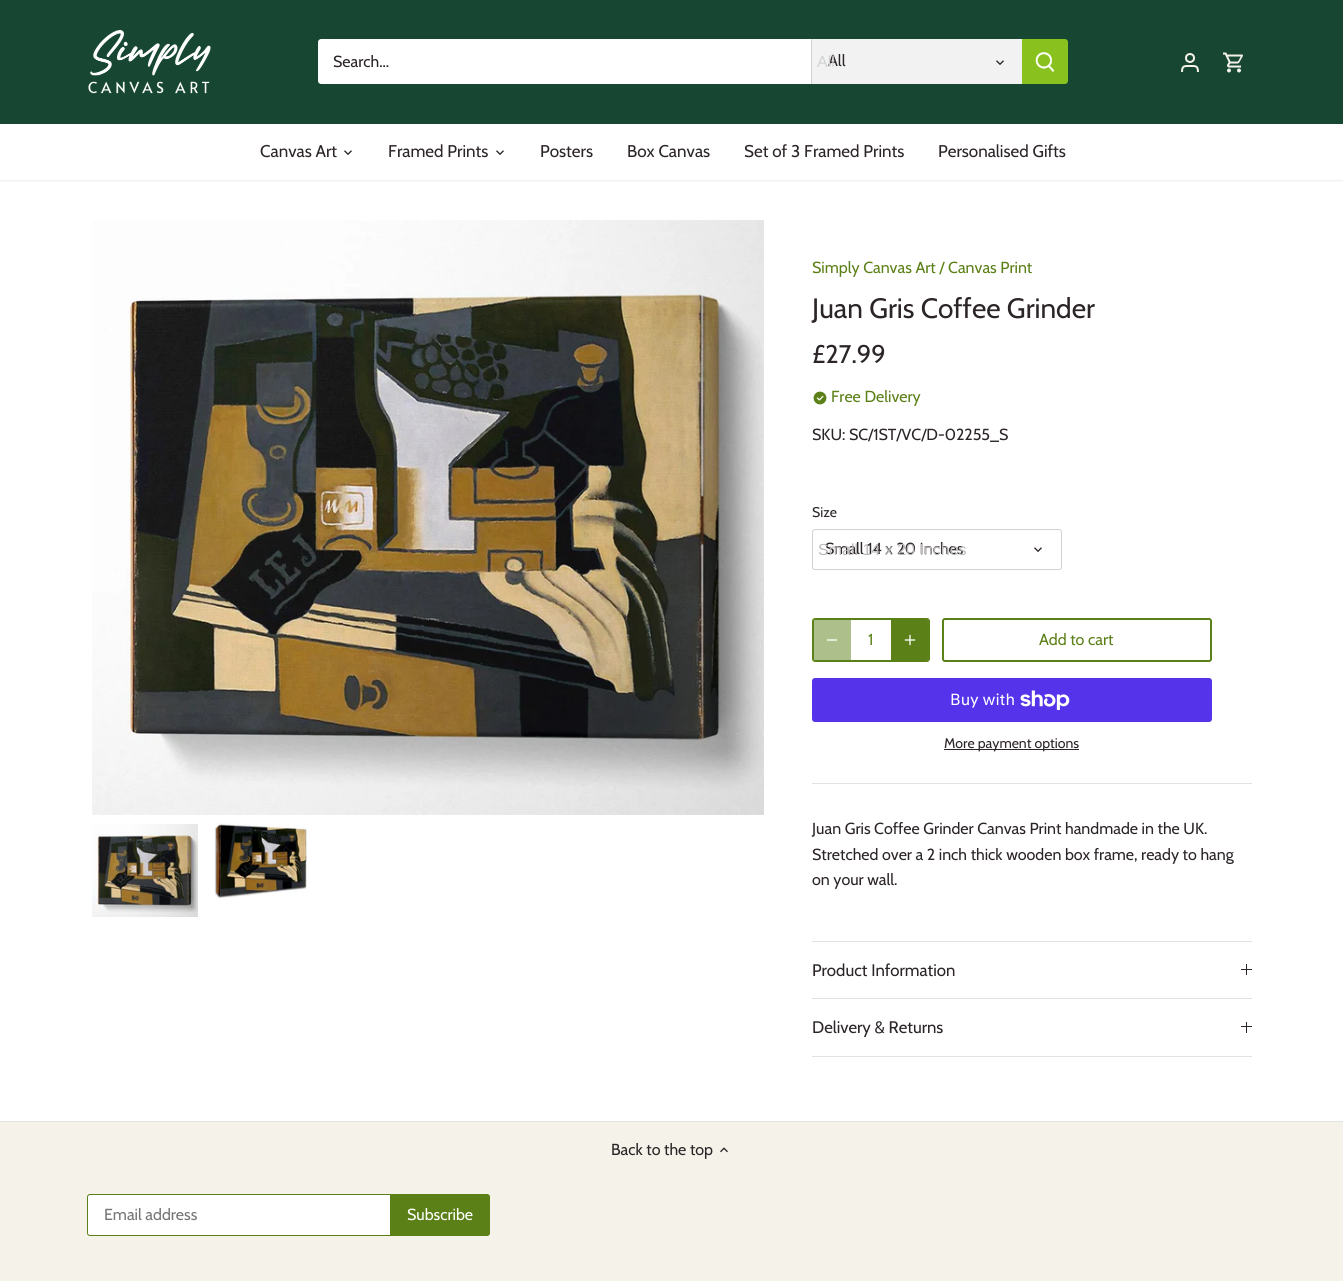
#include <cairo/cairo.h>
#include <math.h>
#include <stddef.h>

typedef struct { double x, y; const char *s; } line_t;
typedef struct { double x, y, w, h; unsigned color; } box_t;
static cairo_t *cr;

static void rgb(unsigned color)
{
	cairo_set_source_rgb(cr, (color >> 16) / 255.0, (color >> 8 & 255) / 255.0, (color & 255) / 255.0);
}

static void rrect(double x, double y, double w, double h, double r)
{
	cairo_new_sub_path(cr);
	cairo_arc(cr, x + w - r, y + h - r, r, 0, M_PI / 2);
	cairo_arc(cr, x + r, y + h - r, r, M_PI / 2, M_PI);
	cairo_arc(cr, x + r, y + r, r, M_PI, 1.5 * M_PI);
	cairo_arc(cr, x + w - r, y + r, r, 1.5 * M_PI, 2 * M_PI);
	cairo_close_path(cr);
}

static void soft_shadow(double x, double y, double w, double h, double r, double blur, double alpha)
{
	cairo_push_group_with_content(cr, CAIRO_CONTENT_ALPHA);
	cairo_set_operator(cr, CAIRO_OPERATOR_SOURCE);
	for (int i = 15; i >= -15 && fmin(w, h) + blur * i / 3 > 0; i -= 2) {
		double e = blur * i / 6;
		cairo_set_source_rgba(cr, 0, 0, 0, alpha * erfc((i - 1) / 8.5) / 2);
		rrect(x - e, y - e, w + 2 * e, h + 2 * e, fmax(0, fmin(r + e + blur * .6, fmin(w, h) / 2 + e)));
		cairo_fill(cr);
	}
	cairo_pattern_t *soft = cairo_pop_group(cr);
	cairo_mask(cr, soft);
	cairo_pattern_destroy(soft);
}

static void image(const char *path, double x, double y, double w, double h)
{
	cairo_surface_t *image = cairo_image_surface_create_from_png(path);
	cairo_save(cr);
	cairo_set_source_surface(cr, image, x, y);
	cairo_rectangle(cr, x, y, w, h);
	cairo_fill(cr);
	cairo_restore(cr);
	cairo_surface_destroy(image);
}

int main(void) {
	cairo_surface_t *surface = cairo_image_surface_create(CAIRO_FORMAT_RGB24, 1343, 1281);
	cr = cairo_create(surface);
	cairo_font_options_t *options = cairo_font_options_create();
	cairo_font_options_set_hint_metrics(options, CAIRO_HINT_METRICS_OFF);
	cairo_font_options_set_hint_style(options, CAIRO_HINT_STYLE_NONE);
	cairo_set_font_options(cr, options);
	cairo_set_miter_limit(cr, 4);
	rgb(0xf4f2e9);
	cairo_paint(cr);
	rgb(0xffffff);
	cairo_rectangle(cr, 0, 124, 1343, 997);
	cairo_fill(cr);
	cairo_save(cr);
	cairo_rectangle(cr, 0, 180, 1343, 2);
	cairo_clip(cr);
	rgb(0x000000);
	soft_shadow(-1, -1, 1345, 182, 0, 1.5, 0.08);
	cairo_restore(cr);
	rgb(0x174733);
	cairo_rectangle(cr, 0, 0, 1343, 124);
	cairo_fill(cr);
	image("img/1.png", 88, 30, 123, 64);
	rgb(0xffffff);
	cairo_new_path(cr);
	cairo_move_to(cr, 321, 39);
	cairo_line_to(cr, 811, 39);
	cairo_line_to(cr, 811, 84);
	cairo_line_to(cr, 321, 84);
	cairo_curve_to(cr, 319.5, 84, 318, 82.5, 318, 81);
	cairo_line_to(cr, 318, 42);
	cairo_curve_to(cr, 318, 40.5, 319.5, 39, 321, 39);
	cairo_close_path(cr);
	cairo_fill(cr);
	rgb(0xf2f2f2);
	cairo_rectangle(cr, 812, 39, 210, 45);
	cairo_fill(cr);
	rgb(0xd3d1d2);
	cairo_rectangle(cr, 811, 39, 1, 45);
	cairo_fill(cr);
	image("img/2.png", 996, 60, 8, 5);
	rgb(0x89c21e);
	cairo_new_path(cr);
	cairo_move_to(cr, 1022, 39);
	cairo_line_to(cr, 1065, 39);
	cairo_curve_to(cr, 1066.5, 39, 1068, 40.5, 1068, 42);
	cairo_line_to(cr, 1068, 81);
	cairo_curve_to(cr, 1068, 82.5, 1066.5, 84, 1065, 84);
	cairo_line_to(cr, 1022, 84);
	cairo_close_path(cr);
	cairo_fill(cr);
	image("img/3.png", 1035, 52, 20, 20);
	cairo_arc(cr, 1190, 58, 4, 0, 2 * M_PI);
	rgb(0xf4f2e9);
	cairo_stroke(cr);
	cairo_new_path(cr);
	cairo_move_to(cr, 1198, 72);
	cairo_curve_to(cr, 1198, 65.5, 1195.5, 66, 1190, 66);
	cairo_curve_to(cr, 1184.5, 66, 1182, 65.5, 1182, 72);
	cairo_stroke(cr);
	image("img/4.png", 1223, 52, 20, 21);
	image("img/5.png", 344, 150, 8, 5);
	image("img/5.png", 496, 150, 8, 5);
	image("img/6.png", 92, 220, 672, 595);
	image("img/7.png", 92, 824, 106, 93);
	image("img/8.png", 213, 823, 94, 75);
	image("img/9.png", 813, 391, 14, 14);
	rrect(812.5, 529.5, 249, 40, 2.5);
	rgb(0xd3d1d2);
	cairo_set_line_width(cr, 1);
	cairo_stroke(cr);
	image("img/5.png", 1034, 547, 8, 5);
	rrect(813.5, 619.5, 115, 41, 1.5);
	rgb(0x5c8018);
	cairo_stroke(cr);
	rrect(812.5, 618.5, 117, 43, 2.5);
	cairo_stroke(cr);
	cairo_set_source_rgba(cr, 0.361, 0.502, 0.094, 0.5);
	cairo_new_path(cr);
	cairo_move_to(cr, 816, 619);
	cairo_line_to(cr, 851, 619);
	cairo_line_to(cr, 851, 661);
	cairo_line_to(cr, 816, 661);
	cairo_curve_to(cr, 814.5, 661, 813, 659.5, 813, 658);
	cairo_line_to(cr, 813, 622);
	cairo_curve_to(cr, 813, 620.5, 814.5, 619, 816, 619);
	cairo_close_path(cr);
	cairo_fill(cr);
	cairo_new_path(cr);
	cairo_move_to(cr, 827.5, 640);
	cairo_line_to(cr, 836.5, 640);
	rgb(0xffffff);
	cairo_set_line_width(cr, 1.3);
	cairo_set_line_cap(cr, CAIRO_LINE_CAP_ROUND);
	cairo_set_line_join(cr, CAIRO_LINE_JOIN_ROUND);
	cairo_stroke(cr);
	cairo_save(cr);
	rrect(813, 619, 116, 42, 2);
	cairo_clip(cr);
	rgb(0x5c8018);
	cairo_new_path(cr);
	cairo_move_to(cr, 891, 619);
	cairo_line_to(cr, 926, 619);
	cairo_curve_to(cr, 927.5, 619, 929, 620.5, 929, 622);
	cairo_line_to(cr, 929, 658);
	cairo_curve_to(cr, 929, 659.5, 927.5, 661, 926, 661);
	cairo_line_to(cr, 891, 661);
	cairo_close_path(cr);
	cairo_fill(cr);
	cairo_restore(cr);
	image("img/10.png", 904, 634, 12, 12);
	rrect(943, 619, 268, 42, 2);
	rgb(0x5c8018);
	cairo_set_line_width(cr, 2);
	cairo_set_line_cap(cr, CAIRO_LINE_CAP_BUTT);
	cairo_set_line_join(cr, CAIRO_LINE_JOIN_MITER);
	cairo_stroke(cr);
	rgb(0x5433eb);
	rrect(812, 678, 400, 44, 3);
	cairo_fill(cr);
	image("img/11.png", 1020, 690, 50, 20);
	{
		static const box_t items[] = {
			{944, 749, 135, 1, 0x2c2528},
			{812, 783, 440, 1, 0xe2e2e2},
			{812, 941, 440, 1, 0xe2e2e2},
			{812, 998, 440, 1, 0xe2e2e2},
			{1246, 964, 1, 11, 0x2c2528},
			{1241, 969, 11, 1, 0x2c2528},
			{812, 1056, 440, 1, 0xe2e2e2},
			{1246, 1022, 1, 11, 0x2c2528},
			{1241, 1026, 11, 1, 0x2c2528},
			{0, 1121, 1343, 1, 0xe2e2e2},
		};
		for (size_t i = 0; i < sizeof items / sizeof *items; i++) {
			rgb(items[i].color);
			cairo_rectangle(cr, items[i].x, items[i].y, items[i].w, items[i].h);
			cairo_fill(cr);
		}
	}
	image("img/12.png", 720, 1147, 8, 6);
	rgb(0xffffff);
	rrect(87.5, 1194.5, 401, 41, 2.5);
	cairo_fill_preserve(cr);
	rgb(0x5c8018);
	cairo_set_line_width(cr, 1);
	cairo_stroke(cr);
	cairo_new_path(cr);
	cairo_move_to(cr, 390.5, 1194.5);
	cairo_line_to(cr, 487, 1194.5);
	cairo_curve_to(cr, 488.5, 1194.5, 489.5, 1195.5, 489.5, 1197);
	cairo_line_to(cr, 489.5, 1233);
	cairo_curve_to(cr, 489.5, 1234.5, 488.5, 1235.5, 487, 1235.5);
	cairo_line_to(cr, 390.5, 1235.5);
	cairo_close_path(cr);
	cairo_fill_preserve(cr);
	cairo_stroke(cr);
	cairo_select_font_face(cr, "Cabin", CAIRO_FONT_SLANT_NORMAL, CAIRO_FONT_WEIGHT_NORMAL);
	cairo_set_font_size(cr, 16);
	rgb(0x2c2528);
	cairo_move_to(cr, 333, 67);
	cairo_show_text(cr, "Search...");
	cairo_move_to(cr, 828, 66);
	cairo_show_text(cr, "All");
	cairo_select_font_face(cr, "Liberation Sans", CAIRO_FONT_SLANT_NORMAL, CAIRO_FONT_WEIGHT_NORMAL);
	rgb(0xd3d2d2);
	cairo_move_to(cr, 817, 67);
	cairo_show_text(cr, "All");
	cairo_select_font_face(cr, "Cabin", CAIRO_FONT_SLANT_NORMAL, CAIRO_FONT_WEIGHT_NORMAL);
	cairo_set_font_size(cr, 17);
	rgb(0x2c2528);
	{
		static const line_t items[] = {
			{260, 157, "Canvas Art"},
			{388, 157, "Framed Prints"},
			{540, 157, "Posters"},
			{627, 157, "Box Canvas"},
			{744, 157, "Set of 3 Framed Prints"},
			{938, 157, "Personalised Gifts"},
		};
		for (size_t i = 0; i < sizeof items / sizeof *items; i++) {
			cairo_move_to(cr, items[i].x, items[i].y);
			cairo_show_text(cr, items[i].s);
		}
	}
	cairo_set_font_size(cr, 16);
	rgb(0x5c8018);
	cairo_move_to(cr, 812, 273);
	cairo_show_text(cr, "Simply Canvas Art / Canvas Print");
	cairo_set_font_size(cr, 28);
	rgb(0x2c2528);
	cairo_move_to(cr, 812, 318);
	cairo_show_text(cr, "Juan Gris Coffee Grinder");
	cairo_set_font_size(cr, 25.5);
	cairo_move_to(cr, 812, 363);
	cairo_show_text(cr, "£27.99");
	cairo_set_font_size(cr, 16);
	rgb(0x5c8018);
	cairo_move_to(cr, 831, 402);
	cairo_show_text(cr, "Free Delivery");
	rgb(0x2c2528);
	cairo_move_to(cr, 812, 440);
	cairo_show_text(cr, "SKU: SC/1ST/VC/D-02255_S");
	cairo_set_font_size(cr, 14);
	cairo_move_to(cr, 812, 517);
	cairo_show_text(cr, "Size");
	cairo_set_font_size(cr, 16);
	cairo_move_to(cr, 825, 554);
	cairo_show_text(cr, "Small 14 x 20 Inches");
	cairo_select_font_face(cr, "Liberation Sans", CAIRO_FONT_SLANT_NORMAL, CAIRO_FONT_WEIGHT_NORMAL);
	rgb(0xbbb9ba);
	cairo_move_to(cr, 818, 555);
	cairo_show_text(cr, "Small 14 x 20 Inches");
	cairo_select_font_face(cr, "Cabin", CAIRO_FONT_SLANT_NORMAL, CAIRO_FONT_WEIGHT_NORMAL);
	rgb(0x5c8018);
	cairo_move_to(cr, 868, 645);
	cairo_show_text(cr, "1");
	cairo_move_to(cr, 1039, 645);
	cairo_show_text(cr, "Add to cart");
	cairo_new_path(cr);
	cairo_move_to(cr, 1072, 635);
	cairo_curve_to(cr, 1074.5, 632.5, 1079.5, 632.5, 1082, 635);
	rgb(0xffffff);
	cairo_set_line_width(cr, 2);
	cairo_stroke(cr);
	cairo_select_font_face(cr, "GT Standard", CAIRO_FONT_SLANT_NORMAL, CAIRO_FONT_WEIGHT_NORMAL);
	cairo_move_to(cr, 950, 705);
	cairo_show_text(cr, "Buy with");
	cairo_select_font_face(cr, "Cabin", CAIRO_FONT_SLANT_NORMAL, CAIRO_FONT_WEIGHT_NORMAL);
	cairo_set_font_size(cr, 14);
	rgb(0x2c2528);
	cairo_move_to(cr, 944, 748);
	cairo_show_text(cr, "More payment options");
	cairo_set_font_size(cr, 16);
	{
		static const line_t items[] = {
			{812, 834, "Juan Gris Coffee Grinder Canvas Print handmade in the UK."},
			{812, 860, "Stretched over a 2 inch thick wooden box frame, ready to hang"},
			{812, 885, "on your wall."},
		};
		for (size_t i = 0; i < sizeof items / sizeof *items; i++) {
			cairo_move_to(cr, items[i].x, items[i].y);
			cairo_show_text(cr, items[i].s);
		}
	}
	cairo_set_font_size(cr, 16.75);
	cairo_move_to(cr, 812, 976);
	cairo_show_text(cr, "Product Information");
	cairo_move_to(cr, 812, 1033);
	cairo_show_text(cr, "Delivery & Returns");
	cairo_set_font_size(cr, 16);
	cairo_move_to(cr, 611, 1155);
	cairo_show_text(cr, "Back to the top");
	rgb(0x757575);
	cairo_move_to(cr, 104, 1220);
	cairo_show_text(cr, "Email address");
	rgb(0xffffff);
	cairo_move_to(cr, 407, 1220);
	cairo_show_text(cr, "Subscribe");
	cairo_surface_write_to_png(surface, "page.png");
	cairo_font_options_destroy(options);
	cairo_destroy(cr);
	cairo_surface_destroy(surface);
	return 0;
}
